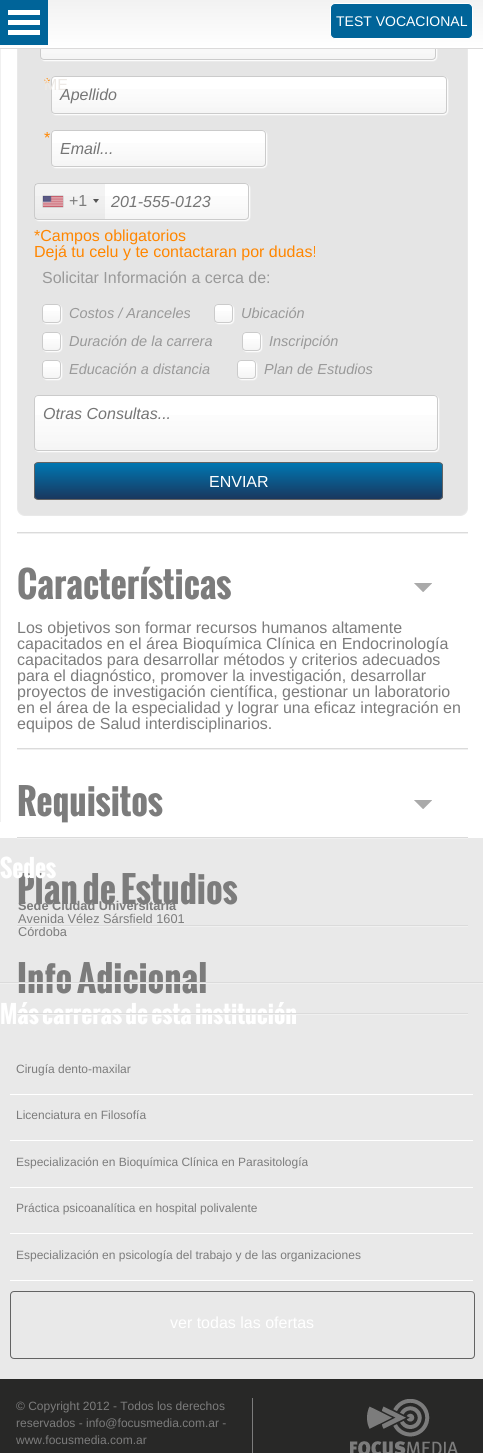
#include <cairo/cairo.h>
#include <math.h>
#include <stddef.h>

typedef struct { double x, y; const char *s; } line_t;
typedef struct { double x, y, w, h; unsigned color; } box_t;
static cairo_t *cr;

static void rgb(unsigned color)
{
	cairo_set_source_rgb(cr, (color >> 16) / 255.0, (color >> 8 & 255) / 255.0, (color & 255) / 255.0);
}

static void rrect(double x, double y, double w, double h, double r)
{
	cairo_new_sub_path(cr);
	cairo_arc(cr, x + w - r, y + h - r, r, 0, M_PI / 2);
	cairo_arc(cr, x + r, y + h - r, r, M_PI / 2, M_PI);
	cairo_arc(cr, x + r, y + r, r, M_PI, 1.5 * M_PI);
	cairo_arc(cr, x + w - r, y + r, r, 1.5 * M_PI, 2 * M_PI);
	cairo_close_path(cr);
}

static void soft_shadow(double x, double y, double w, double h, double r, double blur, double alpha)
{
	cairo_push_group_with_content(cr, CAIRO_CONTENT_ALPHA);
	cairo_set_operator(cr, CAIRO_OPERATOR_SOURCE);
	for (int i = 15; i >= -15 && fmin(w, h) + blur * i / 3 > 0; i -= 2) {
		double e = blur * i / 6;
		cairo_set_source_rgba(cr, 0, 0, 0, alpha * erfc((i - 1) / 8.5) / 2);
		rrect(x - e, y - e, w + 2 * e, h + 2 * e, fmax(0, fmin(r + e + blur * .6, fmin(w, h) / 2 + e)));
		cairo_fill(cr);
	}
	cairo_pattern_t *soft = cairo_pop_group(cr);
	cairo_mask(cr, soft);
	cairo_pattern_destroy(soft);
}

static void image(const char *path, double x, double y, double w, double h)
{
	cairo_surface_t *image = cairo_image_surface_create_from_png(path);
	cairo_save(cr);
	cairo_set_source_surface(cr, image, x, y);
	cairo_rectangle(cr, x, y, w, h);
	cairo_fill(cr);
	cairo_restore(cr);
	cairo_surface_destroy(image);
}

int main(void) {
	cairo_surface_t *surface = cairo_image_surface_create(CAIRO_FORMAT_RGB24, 483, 1453);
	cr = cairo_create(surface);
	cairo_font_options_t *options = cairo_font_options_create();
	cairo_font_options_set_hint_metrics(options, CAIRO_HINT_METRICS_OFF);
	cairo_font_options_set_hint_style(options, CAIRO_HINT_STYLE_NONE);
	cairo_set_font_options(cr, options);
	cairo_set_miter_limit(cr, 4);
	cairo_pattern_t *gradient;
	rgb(0xffffff);
	cairo_paint(cr);
	rgb(0xe5e5e5);
	rrect(17.5, 16.5, 450, 499, 7.5);
	cairo_fill_preserve(cr);
	rgb(0xe9e9e9);
	cairo_set_line_width(cr, 1);
	cairo_stroke(cr);
	rgb(0xffffff);
	soft_shadow(41, 24, 396, 37, 4, 0.5, 1);
	rgb(0xffffff);
	rrect(40, 23, 396, 37, 4);
	cairo_fill(cr);
	gradient = cairo_pattern_create_linear(238, 24, 238, 59);
	cairo_pattern_add_color_stop_rgba(gradient, 0, 1, 1, 1, 0.02);
	cairo_pattern_add_color_stop_rgba(gradient, 1, 0, 0, 0, 0.04);
	cairo_set_source(cr, gradient);
	cairo_pattern_destroy(gradient);
	cairo_rectangle(cr, 40, 49, 396, 10);
	cairo_fill(cr);
	rrect(40.5, 23.5, 395, 36, 3.5);
	rgb(0xcbcbcb);
	cairo_stroke(cr);
	gradient = cairo_pattern_create_linear(242, 0, 242, 48);
	cairo_pattern_add_color_stop_rgba(gradient, 0, 0.949, 0.949, 0.949, 1);
	cairo_pattern_add_color_stop_rgba(gradient, 1, 1, 1, 1, 1);
	cairo_set_source(cr, gradient);
	cairo_pattern_destroy(gradient);
	cairo_rectangle(cr, 0, 0, 483, 48);
	cairo_fill(cr);
	rgb(0xdbdada);
	cairo_rectangle(cr, 0, 48, 483, 1);
	cairo_fill(cr);
	rgb(0x006499);
	rrect(330.5, 3.5, 142, 35, 4.5);
	cairo_fill_preserve(cr);
	rgb(0xffffff);
	cairo_stroke(cr);
	{
		static const box_t items[] = {
			{0, 0, 48, 45, 0x006499},
			{8, 30, 32, 5, 0xffffff},
			{8, 20, 32, 5, 0xffffff},
			{8, 10, 32, 5, 0xffffff},
			{0, 49, 1, 773, 0xf0f0f0},
		};
		for (size_t i = 0; i < sizeof items / sizeof *items; i++) {
			rgb(items[i].color);
			cairo_rectangle(cr, items[i].x, items[i].y, items[i].w, items[i].h);
			cairo_fill(cr);
		}
	}
	rgb(0xffffff);
	soft_shadow(52, 77, 396, 38, 4, 0.5, 1);
	rgb(0xffffff);
	rrect(51, 76, 396, 38, 4);
	cairo_fill(cr);
	gradient = cairo_pattern_create_linear(249, 77, 249, 113);
	cairo_pattern_add_color_stop_rgba(gradient, 0, 1, 1, 1, 0.02);
	cairo_pattern_add_color_stop_rgba(gradient, 1, 0, 0, 0, 0.04);
	cairo_set_source(cr, gradient);
	cairo_pattern_destroy(gradient);
	cairo_rectangle(cr, 51, 89, 396, 24);
	cairo_fill(cr);
	rrect(51.5, 76.5, 395, 37, 3.5);
	rgb(0xcbcbcb);
	cairo_stroke(cr);
	rgb(0xffffff);
	soft_shadow(52, 131, 215, 37, 4, 0.5, 1);
	rgb(0xffffff);
	rrect(51, 130, 215, 37, 4);
	cairo_fill(cr);
	gradient = cairo_pattern_create_linear(159, 131, 159, 166);
	cairo_pattern_add_color_stop_rgba(gradient, 0, 1, 1, 1, 0.02);
	cairo_pattern_add_color_stop_rgba(gradient, 1, 0, 0, 0, 0.04);
	cairo_set_source(cr, gradient);
	cairo_pattern_destroy(gradient);
	cairo_rectangle(cr, 51, 143, 215, 23);
	cairo_fill(cr);
	rrect(51.5, 130.5, 214, 36, 3.5);
	rgb(0xcbcbcb);
	cairo_stroke(cr);
	rgb(0xffffff);
	soft_shadow(35, 184, 215, 37, 4, 0.5, 1);
	rgb(0xffffff);
	rrect(34, 183, 215, 37, 4);
	cairo_fill(cr);
	gradient = cairo_pattern_create_linear(142, 184, 142, 219);
	cairo_pattern_add_color_stop_rgba(gradient, 0, 1, 1, 1, 0.02);
	cairo_pattern_add_color_stop_rgba(gradient, 1, 0, 0, 0, 0.04);
	cairo_set_source(cr, gradient);
	cairo_pattern_destroy(gradient);
	cairo_rectangle(cr, 34, 196, 215, 23);
	cairo_fill(cr);
	rrect(34.5, 183.5, 214, 36, 3.5);
	rgb(0xcbcbcb);
	cairo_stroke(cr);
	cairo_set_source_rgba(cr, 0, 0, 0, 0.05);
	cairo_rectangle(cr, 35, 184, 70, 35);
	cairo_fill(cr);
	rgb(0x888888);
	soft_shadow(43, 196, 20, 11, 0, 0.5, 1);
	image("img/1.png", 43, 196, 20, 11);
	rgb(0x555555);
	cairo_new_path(cr);
	cairo_move_to(cr, 93, 199);
	cairo_line_to(cr, 99, 199);
	cairo_line_to(cr, 96, 203);
	cairo_close_path(cr);
	cairo_fill(cr);
	rgb(0xffffff);
	soft_shadow(43, 305, 19, 19, 4, 0.5, 1);
	rgb(0xffffff);
	rrect(42, 304, 19, 19, 4);
	cairo_fill(cr);
	gradient = cairo_pattern_create_linear(52, 305, 52, 322);
	cairo_pattern_add_color_stop_rgba(gradient, 0, 1, 1, 1, 0.02);
	cairo_pattern_add_color_stop_rgba(gradient, 1, 0, 0, 0, 0.04);
	cairo_set_source(cr, gradient);
	cairo_pattern_destroy(gradient);
	cairo_rectangle(cr, 42, 311, 19, 11);
	cairo_fill(cr);
	rrect(42.5, 304.5, 18, 18, 3.5);
	rgb(0xcbcbcb);
	cairo_stroke(cr);
	rgb(0xffffff);
	soft_shadow(215, 305, 19, 19, 4, 0.5, 1);
	rgb(0xffffff);
	rrect(214, 304, 19, 19, 4);
	cairo_fill(cr);
	gradient = cairo_pattern_create_linear(224, 305, 224, 322);
	cairo_pattern_add_color_stop_rgba(gradient, 0, 1, 1, 1, 0.02);
	cairo_pattern_add_color_stop_rgba(gradient, 1, 0, 0, 0, 0.04);
	cairo_set_source(cr, gradient);
	cairo_pattern_destroy(gradient);
	cairo_rectangle(cr, 214, 311, 19, 11);
	cairo_fill(cr);
	rrect(214.5, 304.5, 18, 18, 3.5);
	rgb(0xcbcbcb);
	cairo_stroke(cr);
	rgb(0xffffff);
	soft_shadow(43, 333, 19, 19, 4, 0.5, 1);
	rgb(0xffffff);
	rrect(42, 332, 19, 19, 4);
	cairo_fill(cr);
	gradient = cairo_pattern_create_linear(52, 333, 52, 350);
	cairo_pattern_add_color_stop_rgba(gradient, 0, 1, 1, 1, 0.02);
	cairo_pattern_add_color_stop_rgba(gradient, 1, 0, 0, 0, 0.04);
	cairo_set_source(cr, gradient);
	cairo_pattern_destroy(gradient);
	cairo_rectangle(cr, 42, 339, 19, 11);
	cairo_fill(cr);
	rrect(42.5, 332.5, 18, 18, 3.5);
	rgb(0xcbcbcb);
	cairo_stroke(cr);
	rgb(0xffffff);
	soft_shadow(243, 333, 19, 19, 4, 0.5, 1);
	rgb(0xffffff);
	rrect(242, 332, 19, 19, 4);
	cairo_fill(cr);
	gradient = cairo_pattern_create_linear(252, 333, 252, 350);
	cairo_pattern_add_color_stop_rgba(gradient, 0, 1, 1, 1, 0.02);
	cairo_pattern_add_color_stop_rgba(gradient, 1, 0, 0, 0, 0.04);
	cairo_set_source(cr, gradient);
	cairo_pattern_destroy(gradient);
	cairo_rectangle(cr, 242, 339, 19, 11);
	cairo_fill(cr);
	rrect(242.5, 332.5, 18, 18, 3.5);
	rgb(0xcbcbcb);
	cairo_stroke(cr);
	rgb(0xffffff);
	soft_shadow(43, 361, 19, 19, 4, 0.5, 1);
	rgb(0xffffff);
	rrect(42, 360, 19, 19, 4);
	cairo_fill(cr);
	gradient = cairo_pattern_create_linear(52, 361, 52, 378);
	cairo_pattern_add_color_stop_rgba(gradient, 0, 1, 1, 1, 0.02);
	cairo_pattern_add_color_stop_rgba(gradient, 1, 0, 0, 0, 0.04);
	cairo_set_source(cr, gradient);
	cairo_pattern_destroy(gradient);
	cairo_rectangle(cr, 42, 367, 19, 11);
	cairo_fill(cr);
	rrect(42.5, 360.5, 18, 18, 3.5);
	rgb(0xcbcbcb);
	cairo_stroke(cr);
	rgb(0xffffff);
	soft_shadow(238, 361, 19, 19, 4, 0.5, 1);
	rgb(0xffffff);
	rrect(237, 360, 19, 19, 4);
	cairo_fill(cr);
	gradient = cairo_pattern_create_linear(247, 361, 247, 378);
	cairo_pattern_add_color_stop_rgba(gradient, 0, 1, 1, 1, 0.02);
	cairo_pattern_add_color_stop_rgba(gradient, 1, 0, 0, 0, 0.04);
	cairo_set_source(cr, gradient);
	cairo_pattern_destroy(gradient);
	cairo_rectangle(cr, 237, 367, 19, 11);
	cairo_fill(cr);
	rrect(237.5, 360.5, 18, 18, 3.5);
	rgb(0xcbcbcb);
	cairo_stroke(cr);
	rgb(0xffffff);
	soft_shadow(35, 396, 404, 56, 4, 0.5, 1);
	rgb(0xffffff);
	rrect(34, 395, 404, 56, 4);
	cairo_fill(cr);
	gradient = cairo_pattern_create_linear(236, 396, 236, 450);
	cairo_pattern_add_color_stop_rgba(gradient, 0, 1, 1, 1, 0.02);
	cairo_pattern_add_color_stop_rgba(gradient, 1, 0, 0, 0, 0.04);
	cairo_set_source(cr, gradient);
	cairo_pattern_destroy(gradient);
	cairo_rectangle(cr, 34, 415, 404, 35);
	cairo_fill(cr);
	rrect(34.5, 395.5, 403, 55, 3.5);
	rgb(0xcbcbcb);
	cairo_stroke(cr);
	cairo_save(cr);
	rrect(34, 462, 409, 38, 4);
	cairo_clip(cr);
	gradient = cairo_pattern_create_linear(239, 499, 239, 463);
	cairo_pattern_add_color_stop_rgba(gradient, 0, 0.098, 0.216, 0.369, 1);
	cairo_pattern_add_color_stop_rgba(gradient, 1, 0, 0.467, 0.698, 1);
	cairo_set_source(cr, gradient);
	cairo_pattern_destroy(gradient);
	cairo_rectangle(cr, 34, 463, 409, 36);
	cairo_fill(cr);
	cairo_restore(cr);
	rrect(34.5, 462.5, 408, 37, 3.5);
	rgb(0x636363);
	cairo_stroke(cr);
	rgb(0xdbdbdb);
	cairo_rectangle(cr, 17, 532, 451, 1);
	cairo_fill(cr);
	rgb(0xf0f0f0);
	cairo_rectangle(cr, 17, 533, 451, 1);
	cairo_fill(cr);
	image("img/2.png", 414, 583, 18, 9);
	rgb(0xdbdbdb);
	cairo_rectangle(cr, 17, 748, 451, 1);
	cairo_fill(cr);
	rgb(0xf0f0f0);
	cairo_rectangle(cr, 17, 749, 451, 1);
	cairo_fill(cr);
	image("img/2.png", 414, 800, 18, 9);
	{
		static const box_t items[] = {
			{17, 837, 451, 1, 0xdbdbdb},
			{0, 838, 483, 541, 0xe9e9e9},
			{17, 838, 451, 1, 0xf0f0f0},
			{17, 925, 451, 1, 0xdbdbdb},
			{10, 1094, 463, 1, 0xffffff},
			{10, 1140, 463, 1, 0xffffff},
			{10, 1187, 463, 1, 0xffffff},
			{10, 1233, 463, 1, 0xffffff},
			{10, 1280, 463, 1, 0xffffff},
		};
		for (size_t i = 0; i < sizeof items / sizeof *items; i++) {
			rgb(items[i].color);
			cairo_rectangle(cr, items[i].x, items[i].y, items[i].w, items[i].h);
			cairo_fill(cr);
		}
	}
	rrect(10.5, 1291.5, 464, 67, 3.5);
	rgb(0x636363);
	cairo_stroke(cr);
	rgb(0x282827);
	cairo_rectangle(cr, 0, 1379, 483, 74);
	cairo_fill(cr);
	rgb(0x7c7c7c);
	cairo_rectangle(cr, 252, 1398, 1, 55);
	cairo_fill(cr);
	image("img/3.png", 350, 1399, 108, 54);
	cairo_select_font_face(cr, "Liberation Sans", CAIRO_FONT_SLANT_NORMAL, CAIRO_FONT_WEIGHT_NORMAL);
	cairo_set_font_size(cr, 14);
	rgb(0xffffff);
	cairo_move_to(cr, 336, 26);
	cairo_show_text(cr, "TEST VOCACIONAL");
	cairo_set_font_size(cr, 16);
	rgb(0xff8600);
	cairo_move_to(cr, 44, 89);
	cairo_show_text(cr, "*");
	rgb(0xede9e5);
	cairo_move_to(cr, 44, 90);
	cairo_show_text(cr, "ME");
	cairo_select_font_face(cr, "Liberation Sans", CAIRO_FONT_SLANT_ITALIC, CAIRO_FONT_WEIGHT_NORMAL);
	rgb(0x757575);
	cairo_move_to(cr, 60, 100);
	cairo_show_text(cr, "Apellido");
	cairo_select_font_face(cr, "Liberation Sans", CAIRO_FONT_SLANT_NORMAL, CAIRO_FONT_WEIGHT_NORMAL);
	rgb(0xff8600);
	cairo_move_to(cr, 44, 143);
	cairo_show_text(cr, "*");
	cairo_select_font_face(cr, "Liberation Sans", CAIRO_FONT_SLANT_ITALIC, CAIRO_FONT_WEIGHT_NORMAL);
	rgb(0x757575);
	cairo_move_to(cr, 60, 154);
	cairo_show_text(cr, "Email...");
	cairo_select_font_face(cr, "Liberation Sans", CAIRO_FONT_SLANT_NORMAL, CAIRO_FONT_WEIGHT_NORMAL);
	rgb(0x7c7c7c);
	cairo_move_to(cr, 69, 206);
	cairo_show_text(cr, "+1");
	cairo_select_font_face(cr, "Liberation Sans", CAIRO_FONT_SLANT_ITALIC, CAIRO_FONT_WEIGHT_NORMAL);
	rgb(0x757575);
	cairo_move_to(cr, 111, 207);
	cairo_show_text(cr, "201-555-0123");
	cairo_select_font_face(cr, "Liberation Sans", CAIRO_FONT_SLANT_NORMAL, CAIRO_FONT_WEIGHT_NORMAL);
	rgb(0xff8600);
	cairo_move_to(cr, 34, 241);
	cairo_show_text(cr, "*Campos obligatorios");
	cairo_move_to(cr, 34, 257);
	cairo_show_text(cr, "Dejá tu celu y te contactaran por dudas!");
	rgb(0x999999);
	cairo_move_to(cr, 42, 283);
	cairo_show_text(cr, "Solicitar Información a cerca de:");
	cairo_select_font_face(cr, "Liberation Sans", CAIRO_FONT_SLANT_ITALIC, CAIRO_FONT_WEIGHT_NORMAL);
	cairo_set_font_size(cr, 14.5);
	{
		static const line_t items[] = {
			{69, 318, "Costos / Aranceles"},
			{241, 318, "Ubicación"},
			{69, 346, "Duración de la carrera"},
			{269, 346, "Inscripción"},
			{69, 374, "Educación a distancia"},
			{264, 374, "Plan de Estudios"},
		};
		for (size_t i = 0; i < sizeof items / sizeof *items; i++) {
			cairo_move_to(cr, items[i].x, items[i].y);
			cairo_show_text(cr, items[i].s);
		}
	}
	cairo_set_font_size(cr, 16);
	rgb(0x757575);
	cairo_move_to(cr, 43, 419);
	cairo_show_text(cr, "Otras Consultas...");
	cairo_select_font_face(cr, "Liberation Sans", CAIRO_FONT_SLANT_NORMAL, CAIRO_FONT_WEIGHT_NORMAL);
	rgb(0xffffff);
	cairo_move_to(cr, 209, 487);
	cairo_show_text(cr, "ENVIAR");
	cairo_select_font_face(cr, "Oswald", CAIRO_FONT_SLANT_NORMAL, CAIRO_FONT_WEIGHT_BOLD);
	cairo_set_font_size(cr, 35.25);
	rgb(0x7c7c7c);
	cairo_move_to(cr, 17, 599);
	cairo_show_text(cr, "Características");
	cairo_select_font_face(cr, "Liberation Sans", CAIRO_FONT_SLANT_NORMAL, CAIRO_FONT_WEIGHT_NORMAL);
	cairo_set_font_size(cr, 16);
	{
		static const line_t items[] = {
			{17, 633, "Los objetivos son formar recursos humanos altamente"},
			{17, 649, "capacitados en el área Bioquímica Clínica en Endocrinología"},
			{17, 665, "capacitados para desarrollar métodos y criterios adecuados"},
			{17, 681, "para el diagnóstico, promover la investigación, desarrollar"},
			{17, 697, "proyectos de investigación científica, gestionar un laboratorio"},
			{17, 713, "en el área de la especialidad y lograr una eficaz integración en"},
			{17, 729, "equipos de Salud interdisciplinarios."},
		};
		for (size_t i = 0; i < sizeof items / sizeof *items; i++) {
			cairo_move_to(cr, items[i].x, items[i].y);
			cairo_show_text(cr, items[i].s);
		}
	}
	cairo_select_font_face(cr, "Oswald", CAIRO_FONT_SLANT_NORMAL, CAIRO_FONT_WEIGHT_BOLD);
	cairo_set_font_size(cr, 35.25);
	{
		static const line_t items[] = {
			{17, 816, "Requisitos"},
			{17, 904, "Plan de Estudios"},
			{17, 993, "Info Adicional"},
		};
		for (size_t i = 0; i < sizeof items / sizeof *items; i++) {
			cairo_move_to(cr, items[i].x, items[i].y);
			cairo_show_text(cr, items[i].s);
		}
	}
	cairo_set_font_size(cr, 24);
	rgb(0xffffff);
	cairo_move_to(cr, 0, 878);
	cairo_show_text(cr, "Sedes");
	cairo_select_font_face(cr, "Liberation Sans", CAIRO_FONT_SLANT_NORMAL, CAIRO_FONT_WEIGHT_BOLD);
	cairo_set_font_size(cr, 12.75);
	rgb(0x7c7c7c);
	cairo_move_to(cr, 18, 910);
	cairo_show_text(cr, "Sede Ciudad Universitaria");
	cairo_select_font_face(cr, "Liberation Sans", CAIRO_FONT_SLANT_NORMAL, CAIRO_FONT_WEIGHT_NORMAL);
	cairo_move_to(cr, 18, 923);
	cairo_show_text(cr, "Avenida Vélez Sársfield 1601");
	cairo_move_to(cr, 18, 936);
	cairo_show_text(cr, "Córdoba");
	{
		static const box_t items[] = {
			{17, 926, 451, 1, 0xf0f0f0},
			{0, 982, 483, 1, 0xdbdbdb},
			{0, 983, 483, 1, 0xf0f0f0},
		};
		for (size_t i = 0; i < sizeof items / sizeof *items; i++) {
			rgb(items[i].color);
			cairo_rectangle(cr, items[i].x, items[i].y, items[i].w, items[i].h);
			cairo_fill(cr);
		}
	}
	cairo_select_font_face(cr, "Oswald", CAIRO_FONT_SLANT_NORMAL, CAIRO_FONT_WEIGHT_BOLD);
	cairo_set_font_size(cr, 24);
	rgb(0xffffff);
	cairo_move_to(cr, 0, 1024);
	cairo_show_text(cr, "Más carreras de esta institución");
	rgb(0xf0f0f0);
	cairo_rectangle(cr, 17, 1014, 451, 1);
	cairo_fill(cr);
	rgb(0xdbdbdb);
	cairo_rectangle(cr, 17, 1013, 451, 1);
	cairo_fill(cr);
	cairo_select_font_face(cr, "Liberation Sans", CAIRO_FONT_SLANT_NORMAL, CAIRO_FONT_WEIGHT_NORMAL);
	cairo_set_font_size(cr, 12);
	rgb(0x7c7c7c);
	{
		static const line_t items[] = {
			{16, 1073, "Cirugía dento-maxilar"},
			{16, 1119, "Licenciatura en Filosofía"},
			{16, 1166, "Especialización en Bioquímica Clínica en Parasitología"},
			{16, 1212, "Práctica psicoanalítica en hospital polivalente"},
			{16, 1259, "Especialización en psicología del trabajo y de las organizaciones"},
		};
		for (size_t i = 0; i < sizeof items / sizeof *items; i++) {
			cairo_move_to(cr, items[i].x, items[i].y);
			cairo_show_text(cr, items[i].s);
		}
	}
	cairo_set_font_size(cr, 16);
	rgb(0xffffff);
	cairo_move_to(cr, 170, 1328);
	cairo_show_text(cr, "ver todas las ofertas");
	cairo_set_font_size(cr, 12);
	rgb(0x7c7c7c);
	{
		static const line_t items[] = {
			{16, 1410, "© Copyright 2012 - Todos los derechos"},
			{16, 1427, "reservados - info@focusmedia.com.ar -"},
			{16, 1444, "www.focusmedia.com.ar"},
		};
		for (size_t i = 0; i < sizeof items / sizeof *items; i++) {
			cairo_move_to(cr, items[i].x, items[i].y);
			cairo_show_text(cr, items[i].s);
		}
	}
	cairo_surface_write_to_png(surface, "page.png");
	cairo_font_options_destroy(options);
	cairo_destroy(cr);
	cairo_surface_destroy(surface);
	return 0;
}
